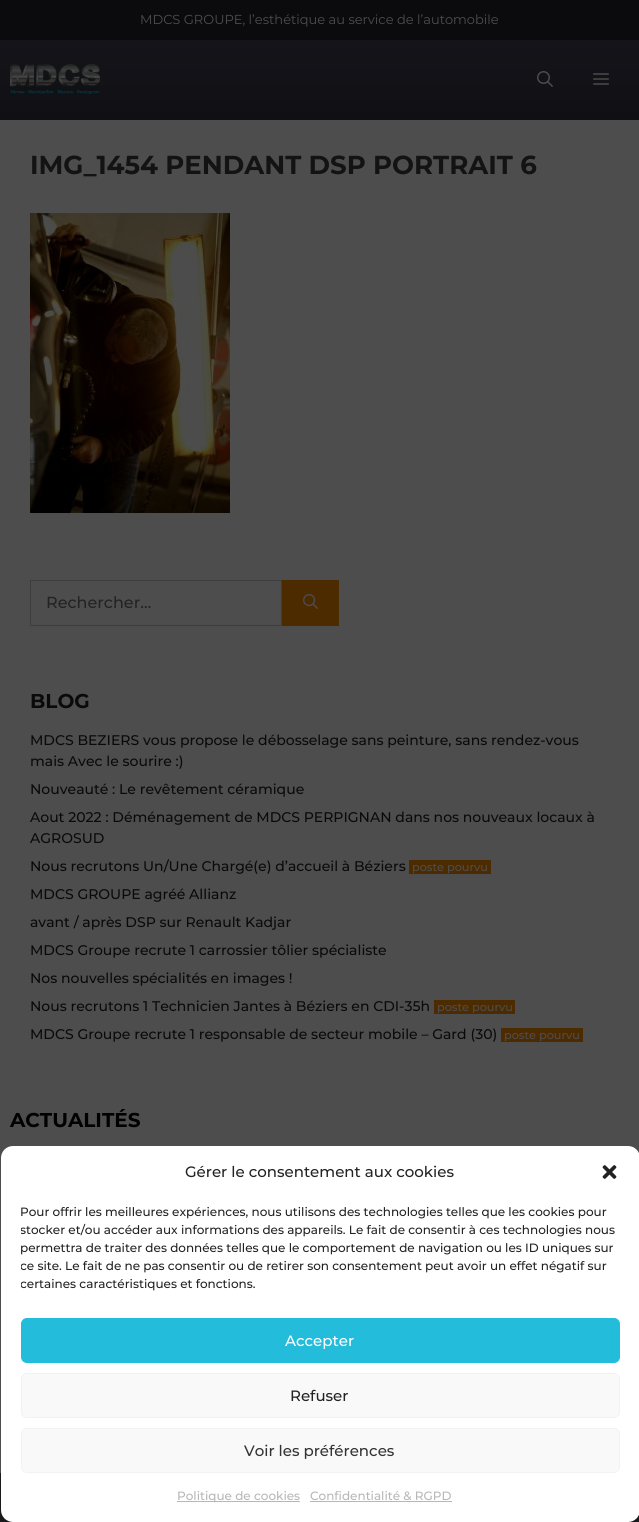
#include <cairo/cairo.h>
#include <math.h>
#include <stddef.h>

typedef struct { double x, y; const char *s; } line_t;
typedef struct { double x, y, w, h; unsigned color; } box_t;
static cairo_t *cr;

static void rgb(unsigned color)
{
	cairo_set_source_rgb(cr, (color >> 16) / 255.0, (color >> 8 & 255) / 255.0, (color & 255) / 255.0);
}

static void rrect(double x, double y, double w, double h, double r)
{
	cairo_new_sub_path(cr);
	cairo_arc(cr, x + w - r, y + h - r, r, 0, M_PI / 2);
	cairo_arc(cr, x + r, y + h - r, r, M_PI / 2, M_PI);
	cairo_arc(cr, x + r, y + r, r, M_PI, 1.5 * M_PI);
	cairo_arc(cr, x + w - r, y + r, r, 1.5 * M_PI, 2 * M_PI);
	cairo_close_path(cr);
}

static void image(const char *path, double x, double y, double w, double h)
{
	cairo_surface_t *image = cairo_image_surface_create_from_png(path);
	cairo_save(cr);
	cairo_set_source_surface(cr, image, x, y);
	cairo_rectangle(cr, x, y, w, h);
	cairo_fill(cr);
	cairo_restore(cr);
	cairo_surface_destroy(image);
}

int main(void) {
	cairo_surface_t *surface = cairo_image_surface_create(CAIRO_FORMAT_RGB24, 639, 1522);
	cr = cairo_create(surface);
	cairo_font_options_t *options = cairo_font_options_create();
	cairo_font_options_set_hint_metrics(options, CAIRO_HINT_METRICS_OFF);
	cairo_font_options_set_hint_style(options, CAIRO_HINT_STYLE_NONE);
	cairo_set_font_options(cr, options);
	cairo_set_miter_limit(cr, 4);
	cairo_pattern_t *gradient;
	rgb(0x4d4d4d);
	cairo_paint(cr);
	rgb(0x0b0b0e);
	cairo_rectangle(cr, 0, 0, 639, 40);
	cairo_fill(cr);
	gradient = cairo_pattern_create_linear(320, 40, 320, 120);
	cairo_pattern_add_color_stop_rgba(gradient, 0, 0.078, 0.078, 0.102, 1);
	cairo_pattern_add_color_stop_rgba(gradient, 1, 0.063, 0.063, 0.078, 1);
	cairo_set_source(cr, gradient);
	cairo_pattern_destroy(gradient);
	cairo_rectangle(cr, 0, 40, 639, 80);
	cairo_fill(cr);
	image("img/1.png", 10, 64, 90, 31);
	image("img/2.png", 537, 71, 16, 16);
	image("img/3.png", 593, 73, 16, 12);
	image("img/4.png", 30, 213, 200, 300);
	cairo_rectangle(cr, 30.5, 580.5, 251, 45);
	rgb(0x3d3d3d);
	cairo_set_line_width(cr, 1);
	cairo_stroke(cr);
	rgb(0x4d2b00);
	cairo_rectangle(cr, 282, 580, 57, 46);
	cairo_fill(cr);
	image("img/5.png", 303, 594, 15, 15);
	{
		static const box_t items[] = {
			{409, 860, 82, 14, 0x4d2b00},
			{434, 1000, 81, 14, 0x4d2b00},
			{501, 1028, 82, 14, 0x4d2b00},
			{0, 1473, 639, 49, 0x1a1a1c},
		};
		for (size_t i = 0; i < sizeof items / sizeof *items; i++) {
			rgb(items[i].color);
			cairo_rectangle(cr, items[i].x, items[i].y, items[i].w, items[i].h);
			cairo_fill(cr);
		}
	}
	rgb(0xffffff);
	rrect(1, 1146, 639, 376, 12);
	cairo_fill(cr);
	image("img/6.png", 602, 1165, 15, 14);
	rgb(0x23bcdb);
	rrect(21.5, 1318.5, 598, 44, 5.5);
	cairo_fill_preserve(cr);
	cairo_stroke(cr);
	rgb(0xf9f9f9);
	rrect(21.5, 1373.5, 598, 44, 5.5);
	cairo_fill_preserve(cr);
	rgb(0xf2f2f2);
	cairo_stroke(cr);
	rgb(0xf9f9f9);
	rrect(21.5, 1428.5, 598, 44, 5.5);
	cairo_fill_preserve(cr);
	rgb(0xf2f2f2);
	cairo_stroke(cr);
	rgb(0xb7b7b7);
	cairo_rectangle(cr, 177, 1501, 123, 1);
	cairo_fill(cr);
	cairo_rectangle(cr, 310, 1501, 142, 1);
	cairo_fill(cr);
	cairo_select_font_face(cr, "Montserrat", CAIRO_FONT_SLANT_NORMAL, CAIRO_FONT_WEIGHT_NORMAL);
	cairo_set_font_size(cr, 13);
	rgb(0x4d4d4d);
	cairo_move_to(cr, 140, 24);
	cairo_show_text(cr, "MDCS GROUPE, l’esthétique au service de l’automobile");
	cairo_select_font_face(cr, "Montserrat", CAIRO_FONT_SLANT_NORMAL, CAIRO_FONT_WEIGHT_BOLD);
	cairo_set_font_size(cr, 26);
	rgb(0x131313);
	cairo_move_to(cr, 30, 174);
	cairo_show_text(cr, "IMG_1454 PENDANT DSP PORTRAIT 6");
	cairo_select_font_face(cr, "Montserrat Medium", CAIRO_FONT_SLANT_NORMAL, CAIRO_FONT_WEIGHT_NORMAL);
	cairo_set_font_size(cr, 16);
	rgb(0x232323);
	cairo_move_to(cr, 46, 608);
	cairo_show_text(cr, "Rechercher…");
	cairo_select_font_face(cr, "Montserrat", CAIRO_FONT_SLANT_NORMAL, CAIRO_FONT_WEIGHT_BOLD);
	cairo_set_font_size(cr, 20);
	rgb(0x0a0a0a);
	cairo_move_to(cr, 30, 708);
	cairo_show_text(cr, "BLOG");
	cairo_select_font_face(cr, "Montserrat Medium", CAIRO_FONT_SLANT_NORMAL, CAIRO_FONT_WEIGHT_NORMAL);
	cairo_set_font_size(cr, 14);
	{
		static const line_t items[] = {
			{30, 745, "MDCS BEZIERS vous propose le débosselage sans peinture, sans rendez-vous"},
			{30, 766, "mais Avec le sourire :)"},
			{30, 794, "Nouveauté : Le revêtement céramique"},
			{30, 822, "Aout 2022 : Déménagement de MDCS PERPIGNAN dans nos nouveaux locaux à"},
			{30, 843, "AGROSUD"},
			{30, 871, "Nous recrutons Un/Une Chargé(e) d’accueil à Béziers"},
		};
		for (size_t i = 0; i < sizeof items / sizeof *items; i++) {
			cairo_move_to(cr, items[i].x, items[i].y);
			cairo_show_text(cr, items[i].s);
		}
	}
	cairo_set_font_size(cr, 11.25);
	rgb(0x4d4d4d);
	cairo_move_to(cr, 412, 871);
	cairo_show_text(cr, "poste pourvu");
	cairo_set_font_size(cr, 14);
	rgb(0x0a0a0a);
	{
		static const line_t items[] = {
			{30, 899, "MDCS GROUPE agréé Allianz"},
			{30, 927, "avant / après DSP sur Renault Kadjar"},
			{30, 955, "MDCS Groupe recrute 1 carrossier tôlier spécialiste"},
			{30, 983, "Nos nouvelles spécialités en images !"},
			{30, 1011, "Nous recrutons 1 Technicien Jantes à Béziers en CDI-35h"},
		};
		for (size_t i = 0; i < sizeof items / sizeof *items; i++) {
			cairo_move_to(cr, items[i].x, items[i].y);
			cairo_show_text(cr, items[i].s);
		}
	}
	cairo_set_font_size(cr, 11.25);
	rgb(0x4d4d4d);
	cairo_move_to(cr, 437, 1011);
	cairo_show_text(cr, "poste pourvu");
	cairo_set_font_size(cr, 14);
	rgb(0x0a0a0a);
	cairo_move_to(cr, 30, 1039);
	cairo_show_text(cr, "MDCS Groupe recrute 1 responsable de secteur mobile – Gard (30)");
	cairo_set_font_size(cr, 11.25);
	rgb(0x4d4d4d);
	cairo_move_to(cr, 504, 1039);
	cairo_show_text(cr, "poste pourvu");
	cairo_select_font_face(cr, "Montserrat", CAIRO_FONT_SLANT_NORMAL, CAIRO_FONT_WEIGHT_BOLD);
	cairo_set_font_size(cr, 20);
	rgb(0x000000);
	cairo_move_to(cr, 10, 1127);
	cairo_show_text(cr, "ACTUALITÉS");
	cairo_select_font_face(cr, "Montserrat Medium", CAIRO_FONT_SLANT_NORMAL, CAIRO_FONT_WEIGHT_NORMAL);
	cairo_set_font_size(cr, 15);
	rgb(0x232323);
	cairo_move_to(cr, 185, 1177);
	cairo_show_text(cr, "Gérer le consentement aux cookies");
	cairo_set_font_size(cr, 12);
	cairo_move_to(cr, 20, 1216);
	cairo_show_text(cr, "Pour offrir les meilleures expériences, nous utilisons des technologies telles que les cookies pour");
	cairo_save(cr);
	cairo_rectangle(cr, 21, 1203, 599, 95);
	cairo_clip(cr);
	cairo_move_to(cr, 20, 1234);
	cairo_show_text(cr, "stocker et/ou accéder aux informations des appareils. Le fait de consentir à ces technologies nous");
	cairo_restore(cr);
	cairo_move_to(cr, 20, 1252);
	cairo_show_text(cr, "permettra de traiter des données telles que le comportement de navigation ou les ID uniques sur");
	cairo_save(cr);
	cairo_rectangle(cr, 21, 1203, 599, 95);
	cairo_clip(cr);
	cairo_move_to(cr, 20, 1270);
	cairo_show_text(cr, "ce site. Le fait de ne pas consentir ou de retirer son consentement peut avoir un effet négatif sur");
	cairo_move_to(cr, 20, 1288);
	cairo_show_text(cr, "certaines caractéristiques et fonctions.");
	cairo_restore(cr);
	cairo_set_font_size(cr, 15);
	rgb(0xffffff);
	cairo_move_to(cr, 285, 1346);
	cairo_show_text(cr, "Accepter");
	rgb(0x232323);
	cairo_move_to(cr, 290, 1401);
	cairo_show_text(cr, "Refuser");
	rgb(0x333333);
	cairo_move_to(cr, 244, 1456);
	cairo_show_text(cr, "Voir les préférences");
	cairo_set_font_size(cr, 12);
	rgb(0xb7b7b7);
	cairo_move_to(cr, 177, 1500);
	cairo_show_text(cr, "Politique de cookies");
	cairo_move_to(cr, 310, 1500);
	cairo_show_text(cr, "Confidentialité & RGPD");
	cairo_surface_write_to_png(surface, "page.png");
	cairo_font_options_destroy(options);
	cairo_destroy(cr);
	cairo_surface_destroy(surface);
	return 0;
}
